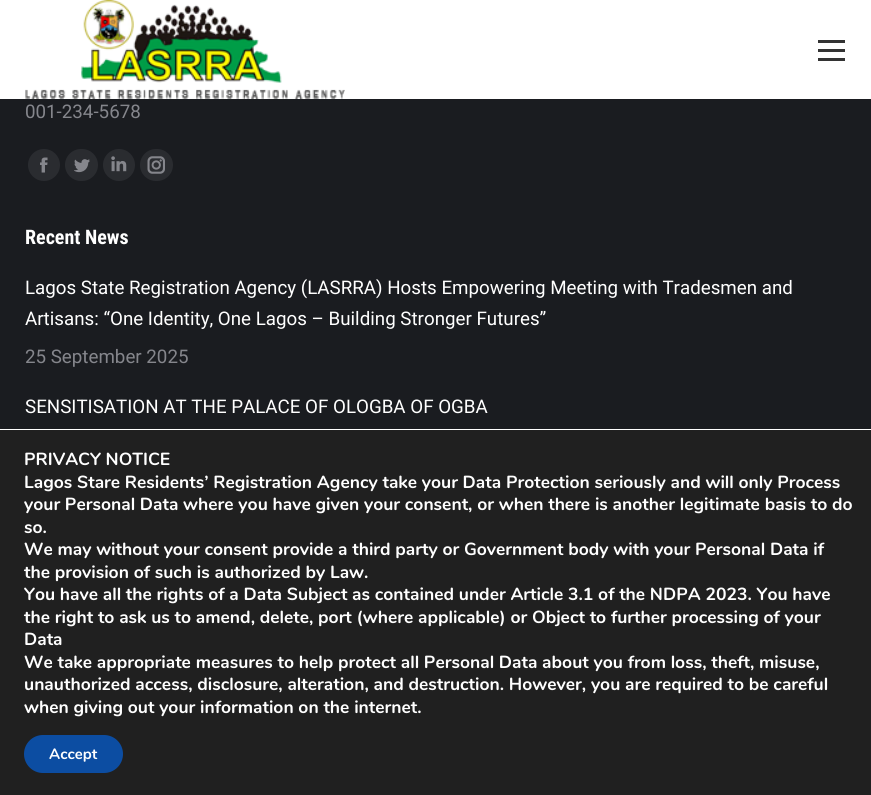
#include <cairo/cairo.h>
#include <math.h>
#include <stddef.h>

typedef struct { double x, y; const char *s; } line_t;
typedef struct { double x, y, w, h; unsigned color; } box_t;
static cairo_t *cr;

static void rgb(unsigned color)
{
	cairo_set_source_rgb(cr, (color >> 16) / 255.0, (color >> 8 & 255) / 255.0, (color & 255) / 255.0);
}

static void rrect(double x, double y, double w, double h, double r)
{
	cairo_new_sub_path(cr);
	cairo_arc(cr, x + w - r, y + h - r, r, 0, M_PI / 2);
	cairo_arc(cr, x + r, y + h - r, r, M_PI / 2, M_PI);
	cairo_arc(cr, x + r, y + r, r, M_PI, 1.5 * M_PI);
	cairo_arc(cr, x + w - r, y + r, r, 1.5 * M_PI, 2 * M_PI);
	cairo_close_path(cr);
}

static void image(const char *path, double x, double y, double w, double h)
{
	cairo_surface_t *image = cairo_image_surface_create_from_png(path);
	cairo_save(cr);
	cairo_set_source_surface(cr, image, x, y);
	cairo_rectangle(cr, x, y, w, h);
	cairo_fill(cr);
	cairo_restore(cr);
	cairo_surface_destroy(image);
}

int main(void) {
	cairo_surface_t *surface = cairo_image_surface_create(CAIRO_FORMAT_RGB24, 871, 795);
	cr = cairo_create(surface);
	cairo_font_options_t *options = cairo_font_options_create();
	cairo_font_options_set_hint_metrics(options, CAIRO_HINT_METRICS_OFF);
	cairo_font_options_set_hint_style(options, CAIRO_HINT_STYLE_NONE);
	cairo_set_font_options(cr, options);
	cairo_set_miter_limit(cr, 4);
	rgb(0x1a1c20);
	cairo_paint(cr);
	rgb(0xffffff);
	cairo_rectangle(cr, 0, 0, 871, 99);
	cairo_fill(cr);
	image("img/1.png", 25, 0, 320, 99);
	{
		static const box_t items[] = {
			{818, 40, 27, 3, 0x333333},
			{818, 49, 27, 3, 0x333333},
			{818, 58, 27, 3, 0x333333},
		};
		for (size_t i = 0; i < sizeof items / sizeof *items; i++) {
			rgb(items[i].color);
			cairo_rectangle(cr, items[i].x, items[i].y, items[i].w, items[i].h);
			cairo_fill(cr);
		}
	}
	rgb(0x2a2c30);
	cairo_arc(cr, 44, 165, 16, 0, 2 * M_PI);
	cairo_fill(cr);
	image("img/2.png", 40, 157, 8, 16);
	rrect(65, 149, 33, 32, 16);
	cairo_fill(cr);
	image("img/3.png", 74, 159, 16, 14);
	cairo_arc(cr, 119, 165, 16, 0, 2 * M_PI);
	cairo_fill(cr);
	image("img/4.png", 111, 156, 16, 16);
	rrect(140, 149, 33, 32, 16);
	cairo_fill(cr);
	image("img/5.png", 147, 156, 18, 18);
	rgb(0x202020);
	cairo_rectangle(cr, 0, 430, 871, 365);
	cairo_fill(cr);
	rgb(0xffffff);
	cairo_rectangle(cr, 0, 429, 871, 1);
	cairo_fill(cr);
	rgb(0x0c4da2);
	rrect(24, 735, 99, 38, 19);
	cairo_fill(cr);
	cairo_select_font_face(cr, "Roboto", CAIRO_FONT_SLANT_NORMAL, CAIRO_FONT_WEIGHT_NORMAL);
	cairo_set_font_size(cr, 18.75);
	rgb(0x85868c);
	cairo_move_to(cr, 25, 118);
	cairo_show_text(cr, "001-234-5678");
	cairo_select_font_face(cr, "Roboto Condensed", CAIRO_FONT_SLANT_NORMAL, CAIRO_FONT_WEIGHT_BOLD);
	cairo_set_font_size(cr, 20);
	rgb(0xffffff);
	cairo_move_to(cr, 25, 244);
	cairo_show_text(cr, "Recent News");
	cairo_select_font_face(cr, "Roboto", CAIRO_FONT_SLANT_NORMAL, CAIRO_FONT_WEIGHT_NORMAL);
	cairo_set_font_size(cr, 18.75);
	cairo_move_to(cr, 25, 294);
	cairo_show_text(cr, "Lagos State Registration Agency (LASRRA) Hosts Empowering Meeting with Tradesmen and");
	cairo_move_to(cr, 25, 325);
	cairo_show_text(cr, "Artisans: “One Identity, One Lagos – Building Stronger Futures”");
	rgb(0x85868c);
	cairo_move_to(cr, 25, 363);
	cairo_show_text(cr, "25 September 2025");
	rgb(0xffffff);
	cairo_move_to(cr, 25, 413);
	cairo_show_text(cr, "SENSITISATION AT THE PALACE OF OLOGBA OF OGBA");
	cairo_select_font_face(cr, "Nunito", CAIRO_FONT_SLANT_NORMAL, CAIRO_FONT_WEIGHT_BOLD);
	cairo_set_font_size(cr, 17.5);
	{
		static const line_t items[] = {
			{24, 465, "PRIVACY NOTICE"},
			{24, 488, "Lagos Stare Residents’ Registration Agency take your Data Protection seriously and will only Process"},
			{24, 510, "your Personal Data where you have given your consent, or when there is another legitimate basis to do"},
			{24, 533, "so."},
			{24, 555, "We may without your consent provide a third party or Government body with your Personal Data if"},
			{24, 578, "the provision of such is authorized by Law."},
			{24, 600, "You have all the rights of a Data Subject as contained under Article 3.1 of the NDPA 2023. You have"},
			{24, 623, "the right to ask us to amend, delete, port (where applicable) or Object to further processing of your"},
			{24, 645, "Data"},
			{24, 668, "We take appropriate measures to help protect all Personal Data about you from loss, theft, misuse,"},
			{24, 690, "unauthorized access, disclosure, alteration, and destruction. However, you are required to be careful"},
			{24, 713, "when giving out your information on the internet."},
		};
		for (size_t i = 0; i < sizeof items / sizeof *items; i++) {
			cairo_move_to(cr, items[i].x, items[i].y);
			cairo_show_text(cr, items[i].s);
		}
	}
	cairo_set_font_size(cr, 15);
	cairo_move_to(cr, 49, 759);
	cairo_show_text(cr, "Accept");
	cairo_surface_write_to_png(surface, "page.png");
	cairo_font_options_destroy(options);
	cairo_destroy(cr);
	cairo_surface_destroy(surface);
	return 0;
}
